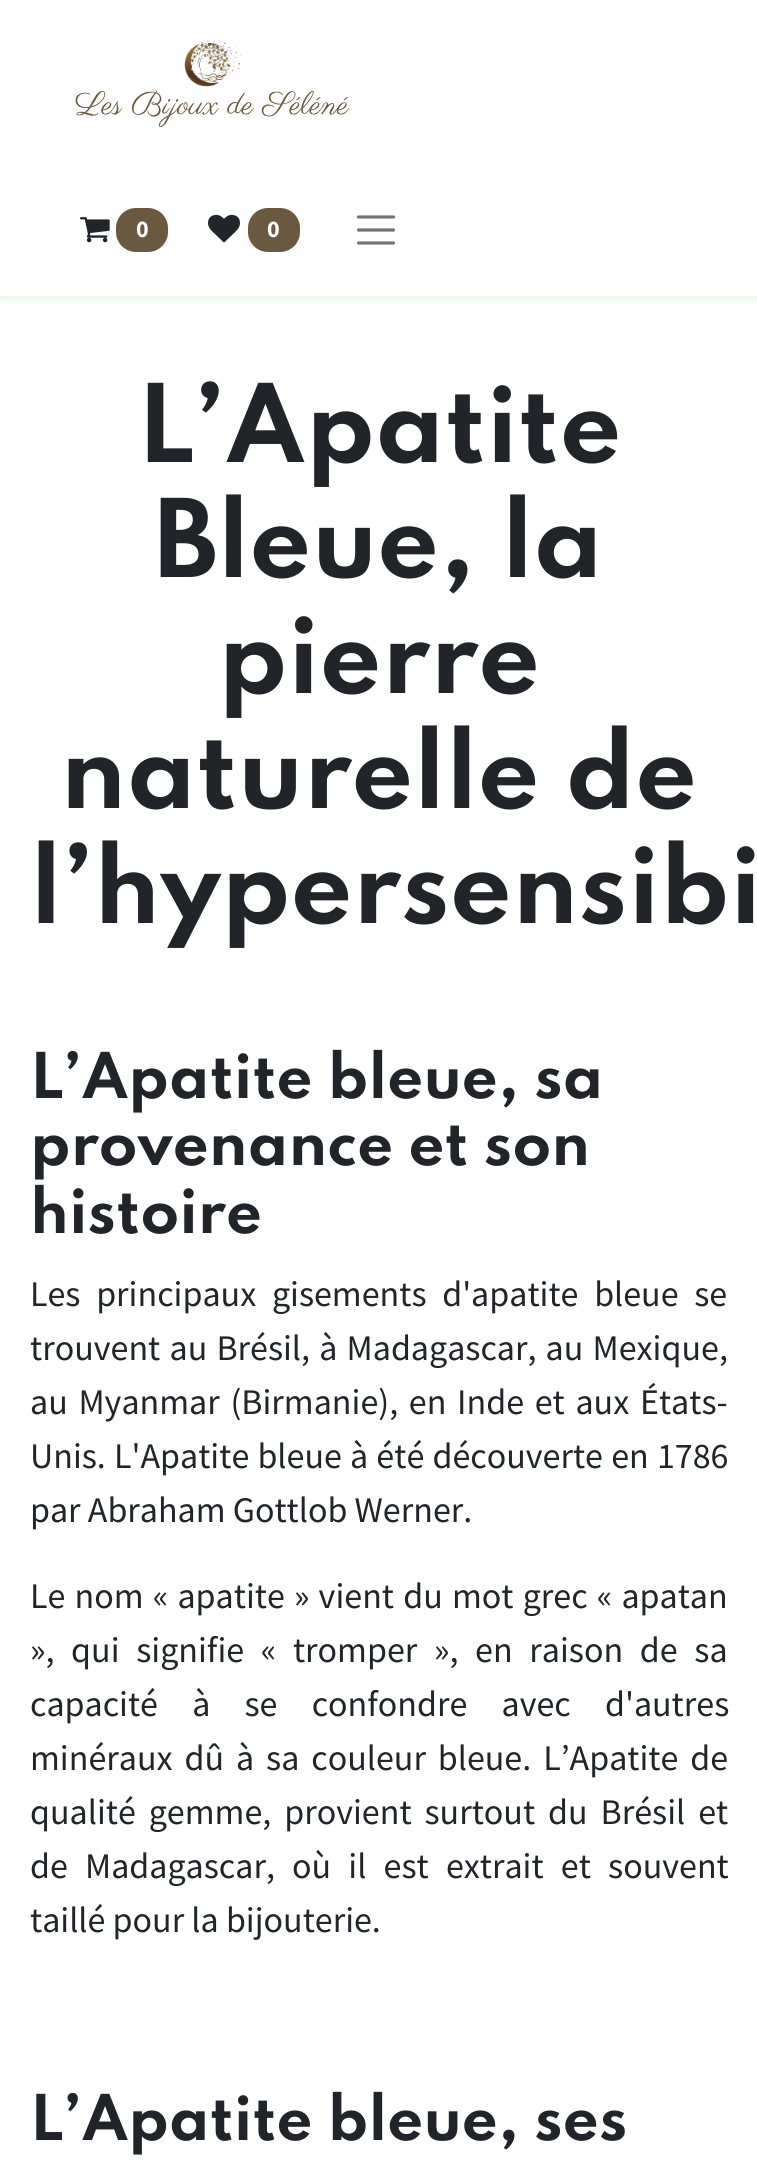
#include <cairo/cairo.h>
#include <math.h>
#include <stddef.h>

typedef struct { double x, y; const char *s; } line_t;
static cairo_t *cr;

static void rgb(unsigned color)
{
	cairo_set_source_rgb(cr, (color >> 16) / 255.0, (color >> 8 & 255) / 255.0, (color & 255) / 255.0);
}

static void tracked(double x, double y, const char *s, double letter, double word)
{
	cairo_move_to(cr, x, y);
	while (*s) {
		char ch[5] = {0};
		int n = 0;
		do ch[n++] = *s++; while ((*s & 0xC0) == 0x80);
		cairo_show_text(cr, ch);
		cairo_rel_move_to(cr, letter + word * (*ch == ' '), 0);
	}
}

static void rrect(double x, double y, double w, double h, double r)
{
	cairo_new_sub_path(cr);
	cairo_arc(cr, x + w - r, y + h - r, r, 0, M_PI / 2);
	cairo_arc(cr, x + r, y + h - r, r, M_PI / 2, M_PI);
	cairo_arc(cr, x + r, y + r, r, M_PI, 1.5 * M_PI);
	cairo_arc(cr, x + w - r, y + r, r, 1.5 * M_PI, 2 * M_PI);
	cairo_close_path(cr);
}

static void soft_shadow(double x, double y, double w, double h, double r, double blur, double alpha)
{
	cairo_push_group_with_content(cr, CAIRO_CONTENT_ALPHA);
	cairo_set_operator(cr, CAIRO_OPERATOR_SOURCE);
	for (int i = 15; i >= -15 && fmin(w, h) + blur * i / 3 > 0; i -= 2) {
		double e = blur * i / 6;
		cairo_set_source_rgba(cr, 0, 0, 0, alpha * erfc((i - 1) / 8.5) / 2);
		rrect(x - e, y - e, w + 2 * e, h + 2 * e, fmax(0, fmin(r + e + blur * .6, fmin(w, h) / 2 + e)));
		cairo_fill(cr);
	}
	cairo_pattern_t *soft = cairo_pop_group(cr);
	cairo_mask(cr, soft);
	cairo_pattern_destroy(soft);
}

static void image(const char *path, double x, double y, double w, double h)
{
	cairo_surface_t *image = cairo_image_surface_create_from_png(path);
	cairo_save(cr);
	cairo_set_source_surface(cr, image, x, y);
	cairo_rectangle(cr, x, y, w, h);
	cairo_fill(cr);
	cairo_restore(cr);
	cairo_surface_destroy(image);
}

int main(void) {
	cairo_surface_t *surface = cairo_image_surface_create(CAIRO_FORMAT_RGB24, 757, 2163);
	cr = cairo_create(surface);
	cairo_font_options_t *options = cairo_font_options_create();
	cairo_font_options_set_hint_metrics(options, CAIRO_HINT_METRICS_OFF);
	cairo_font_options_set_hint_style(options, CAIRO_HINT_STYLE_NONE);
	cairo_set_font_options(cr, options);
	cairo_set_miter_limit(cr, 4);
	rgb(0xffffff);
	cairo_paint(cr);
	cairo_save(cr);
	cairo_rectangle(cr, 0, 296, 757, 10);
	cairo_clip(cr);
	rgb(0xd6efd6);
	soft_shadow(0, 0, 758, 296, 0, 5, 1);
	cairo_restore(cr);
	image("img/1.png", 75, 40, 274, 87);
	image("img/2.png", 80, 217, 30, 26);
	rgb(0x6b593f);
	rrect(116, 208, 52, 44, 20);
	cairo_fill(cr);
	image("img/3.png", 208, 214, 32, 29);
	rrect(248, 208, 52, 44, 20);
	cairo_fill(cr);
	cairo_new_path(cr);
	cairo_move_to(cr, 358.5, 217);
	cairo_line_to(cr, 393.5, 217);
	cairo_move_to(cr, 358.5, 230);
	cairo_line_to(cr, 393.5, 230);
	cairo_move_to(cr, 358.5, 243);
	cairo_line_to(cr, 393.5, 243);
	rgb(0x737373);
	cairo_set_line_width(cr, 3.2);
	cairo_set_line_cap(cr, CAIRO_LINE_CAP_ROUND);
	cairo_stroke(cr);
	cairo_select_font_face(cr, "Source Sans Pro", CAIRO_FONT_SLANT_NORMAL, CAIRO_FONT_WEIGHT_BOLD);
	cairo_set_font_size(cr, 24);
	rgb(0xffffff);
	cairo_move_to(cr, 136, 237);
	cairo_show_text(cr, "0");
	cairo_move_to(cr, 267, 237);
	cairo_show_text(cr, "0");
	cairo_select_font_face(cr, "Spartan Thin", CAIRO_FONT_SLANT_NORMAL, CAIRO_FONT_WEIGHT_BOLD);
	cairo_set_font_size(cr, 96);
	rgb(0x212529);
	{
		static const line_t items[] = {
			{137, 462, "L’Apatite"},
			{154, 577, "Bleue, la"},
			{218, 693, "pierre"},
			{60, 808, "naturelle de"},
			{30, 923, "l’hypersensibi"},
		};
		for (size_t i = 0; i < sizeof items / sizeof *items; i++) {
			cairo_move_to(cr, items[i].x, items[i].y);
			cairo_show_text(cr, items[i].s);
		}
	}
	cairo_set_font_size(cr, 56);
	{
		static const line_t items[] = {
			{30, 1098, "L’Apatite bleue, sa"},
			{30, 1165, "provenance et son"},
			{30, 1233, "histoire"},
		};
		for (size_t i = 0; i < sizeof items / sizeof *items; i++) {
			cairo_move_to(cr, items[i].x, items[i].y);
			cairo_show_text(cr, items[i].s);
		}
	}
	cairo_select_font_face(cr, "Source Sans Pro", CAIRO_FONT_SLANT_NORMAL, CAIRO_FONT_WEIGHT_NORMAL);
	cairo_set_font_size(cr, 36);
	tracked(30, 1306, "Les principaux gisements d'apatite bleue se", 0, 8.5);
	tracked(30, 1360, "trouvent au Brésil, à Madagascar, au Mexique,", 0, 2);
	tracked(30, 1414, "au Myanmar (Birmanie), en Inde et aux États-", 0, 3.5);
	tracked(30, 1468, "Unis. L'Apatite bleue à été découverte en 1786", 0, 1);
	cairo_move_to(cr, 30, 1522);
	cairo_show_text(cr, "par Abraham Gottlob Werner.");
	tracked(30, 1608, "Le nom « apatite » vient du mot grec « apatan", 0, 2);
	tracked(30, 1662, "», qui signifie « tromper », en raison de sa", 0, 9.5);
	tracked(30, 1716, "capacité à se confondre avec d'autres", 0, 27);
	tracked(30, 1770, "minéraux dû à sa couleur bleue. L’Apatite de", 0, 4.75);
	tracked(30, 1824, "qualité gemme, provient surtout du Brésil et", 0, 5.75);
	tracked(30, 1878, "de Madagascar, où il est extrait et souvent", 0, 10);
	cairo_move_to(cr, 30, 1932);
	cairo_show_text(cr, "taillé pour la bijouterie.");
	cairo_select_font_face(cr, "Spartan Thin", CAIRO_FONT_SLANT_NORMAL, CAIRO_FONT_WEIGHT_BOLD);
	cairo_set_font_size(cr, 56);
	cairo_move_to(cr, 30, 2140);
	cairo_show_text(cr, "L’Apatite bleue, ses");
	cairo_surface_write_to_png(surface, "page.png");
	cairo_font_options_destroy(options);
	cairo_destroy(cr);
	cairo_surface_destroy(surface);
	return 0;
}
